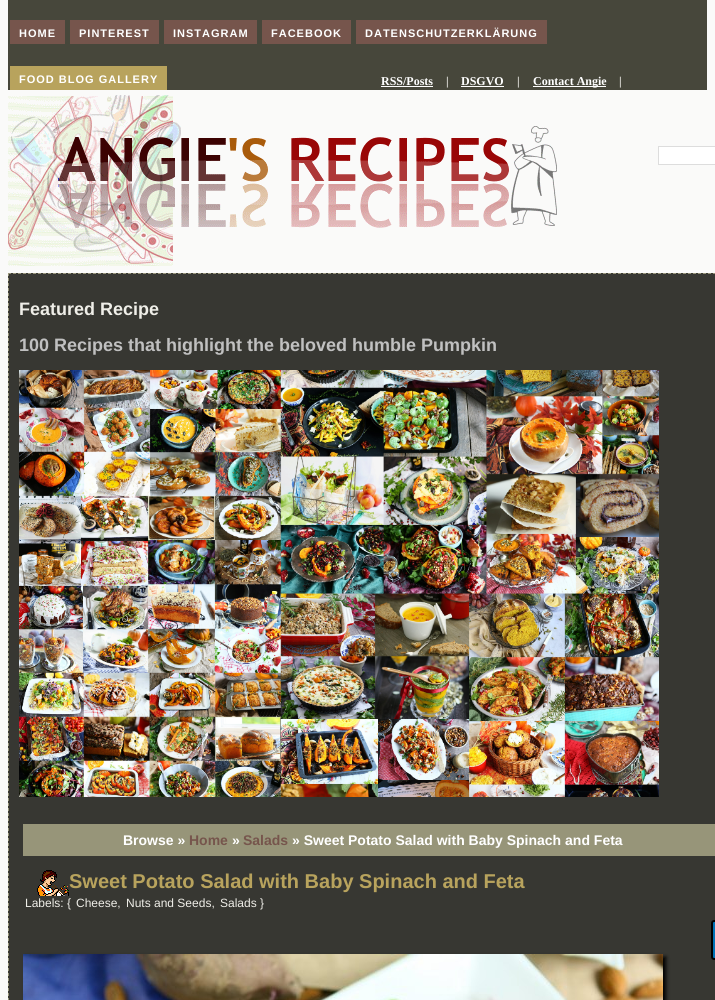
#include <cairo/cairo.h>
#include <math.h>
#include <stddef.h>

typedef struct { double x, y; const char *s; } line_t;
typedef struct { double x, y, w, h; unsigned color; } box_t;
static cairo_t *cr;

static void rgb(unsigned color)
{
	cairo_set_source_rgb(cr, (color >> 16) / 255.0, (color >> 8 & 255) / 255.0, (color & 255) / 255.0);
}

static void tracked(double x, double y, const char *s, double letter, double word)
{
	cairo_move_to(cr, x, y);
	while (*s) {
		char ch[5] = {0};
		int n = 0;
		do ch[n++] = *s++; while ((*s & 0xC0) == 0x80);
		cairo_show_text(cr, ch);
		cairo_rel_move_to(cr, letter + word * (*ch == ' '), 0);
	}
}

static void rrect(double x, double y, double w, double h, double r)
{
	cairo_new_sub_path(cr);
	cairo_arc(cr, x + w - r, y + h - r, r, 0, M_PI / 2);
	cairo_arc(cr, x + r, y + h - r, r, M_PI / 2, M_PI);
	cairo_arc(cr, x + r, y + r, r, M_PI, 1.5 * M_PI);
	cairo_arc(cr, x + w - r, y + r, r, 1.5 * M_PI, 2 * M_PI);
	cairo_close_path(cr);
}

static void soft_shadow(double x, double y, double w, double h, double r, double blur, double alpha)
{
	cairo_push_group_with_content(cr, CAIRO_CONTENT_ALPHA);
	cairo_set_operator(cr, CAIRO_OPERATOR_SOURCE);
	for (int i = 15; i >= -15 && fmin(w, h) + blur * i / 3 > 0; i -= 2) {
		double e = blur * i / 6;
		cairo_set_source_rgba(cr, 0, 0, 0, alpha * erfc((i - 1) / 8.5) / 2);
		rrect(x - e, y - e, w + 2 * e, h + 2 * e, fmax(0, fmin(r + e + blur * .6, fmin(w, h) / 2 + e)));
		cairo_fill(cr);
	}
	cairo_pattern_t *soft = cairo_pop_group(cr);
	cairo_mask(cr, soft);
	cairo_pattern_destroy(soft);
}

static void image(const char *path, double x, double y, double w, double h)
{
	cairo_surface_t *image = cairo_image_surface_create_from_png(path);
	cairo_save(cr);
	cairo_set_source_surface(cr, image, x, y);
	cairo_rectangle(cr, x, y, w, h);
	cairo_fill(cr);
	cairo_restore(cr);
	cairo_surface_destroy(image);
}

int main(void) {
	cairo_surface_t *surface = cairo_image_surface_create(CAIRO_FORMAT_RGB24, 715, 1000);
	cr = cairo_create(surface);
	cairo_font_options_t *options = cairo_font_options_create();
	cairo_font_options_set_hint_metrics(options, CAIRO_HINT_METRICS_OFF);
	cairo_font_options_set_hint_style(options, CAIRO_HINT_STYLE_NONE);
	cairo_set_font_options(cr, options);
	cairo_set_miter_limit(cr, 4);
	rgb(0xfafaf9);
	cairo_paint(cr);
	{
		static const box_t items[] = {
			{8, 0, 699, 90, 0x47473b},
			{10, 20, 55, 24, 0x76554c},
			{70, 20, 89, 24, 0x76554c},
			{164, 20, 93, 24, 0x76554c},
			{262, 20, 89, 24, 0x76554c},
			{356, 20, 191, 24, 0x76554c},
			{10, 66, 157, 24, 0xb8a35d},
			{381, 86, 52, 1, 0xffffff},
			{461, 86, 43, 1, 0xffffff},
			{533, 86, 73, 1, 0xffffff},
		};
		for (size_t i = 0; i < sizeof items / sizeof *items; i++) {
			rgb(items[i].color);
			cairo_rectangle(cr, items[i].x, items[i].y, items[i].w, items[i].h);
			cairo_fill(cr);
		}
	}
	image("img/1.png", 8, 95, 549, 171);
	cairo_rectangle(cr, 658.5, 146.5, 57, 18);
	cairo_fill_preserve(cr);
	rgb(0xdddddd);
	cairo_set_line_width(cr, 1);
	cairo_stroke(cr);
	rgb(0x373732);
	cairo_rectangle(cr, 8, 273, 707, 727);
	cairo_fill(cr);
	cairo_new_path(cr);
	cairo_move_to(cr, 8, 273.5);
	cairo_line_to(cr, 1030, 273.5);
	rgb(0x979579);
	cairo_set_dash(cr, (double[]){3, 2}, 2, 0);
	cairo_stroke(cr);
	cairo_new_path(cr);
	cairo_move_to(cr, 8.5, 273);
	cairo_line_to(cr, 8.5, 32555);
	cairo_stroke(cr);
	image("img/2.png", 19, 370, 640, 427);
	cairo_rectangle(cr, 23, 824, 692, 32);
	cairo_fill(cr);
	image("img/3.png", 37, 870, 32, 26);
	rgb(0x000000);
	soft_shadow(26, 957, 640, 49, 0, 2, 1);
	image("img/4.png", 23, 954, 640, 46);
	rgb(0x0073b7);
	cairo_new_path(cr);
	cairo_move_to(cr, 714, 921);
	cairo_line_to(cr, 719, 921);
	cairo_line_to(cr, 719, 959);
	cairo_line_to(cr, 714, 959);
	cairo_curve_to(cr, 713, 959, 712, 958, 712, 957);
	cairo_line_to(cr, 712, 923);
	cairo_curve_to(cr, 712, 922, 713, 921, 714, 921);
	cairo_close_path(cr);
	cairo_fill_preserve(cr);
	rgb(0x000000);
	cairo_set_line_width(cr, 2);
	cairo_set_dash(cr, NULL, 0, 0);
	cairo_stroke(cr);
	cairo_select_font_face(cr, "Liberation Sans", CAIRO_FONT_SLANT_NORMAL, CAIRO_FONT_WEIGHT_BOLD);
	cairo_set_font_size(cr, 11);
	rgb(0xffffff);
	{
		static const line_t items[] = {
			{19, 37, "HOME"},
			{79, 37, "PINTEREST"},
			{173, 37, "INSTAGRAM"},
			{271, 37, "FACEBOOK"},
			{365, 37, "DATENSCHUTZERKLÄRUNG"},
			{19, 83, "FOOD BLOG GALLERY"},
		};
		for (size_t i = 0; i < sizeof items / sizeof *items; i++) {
			tracked(items[i].x, items[i].y, items[i].s, 1, 0);
		}
	}
	cairo_select_font_face(cr, "Liberation Serif", CAIRO_FONT_SLANT_NORMAL, CAIRO_FONT_WEIGHT_BOLD);
	cairo_set_font_size(cr, 12);
	cairo_move_to(cr, 381, 85);
	cairo_show_text(cr, "RSS/Posts");
	rgb(0xefeee8);
	cairo_move_to(cr, 446, 85);
	cairo_show_text(cr, "|");
	rgb(0xffffff);
	cairo_move_to(cr, 461, 85);
	cairo_show_text(cr, "DSGVO");
	rgb(0xefeee8);
	cairo_move_to(cr, 517, 85);
	cairo_show_text(cr, "|");
	rgb(0xffffff);
	cairo_move_to(cr, 533, 85);
	cairo_show_text(cr, "Contact Angie");
	rgb(0xefeee8);
	cairo_move_to(cr, 619, 85);
	cairo_show_text(cr, "|");
	cairo_select_font_face(cr, "Liberation Sans", CAIRO_FONT_SLANT_NORMAL, CAIRO_FONT_WEIGHT_BOLD);
	cairo_set_font_size(cr, 18);
	cairo_move_to(cr, 19, 315);
	cairo_show_text(cr, "Featured Recipe");
	rgb(0xc0c0c0);
	cairo_move_to(cr, 19, 351);
	cairo_show_text(cr, "100 Recipes that highlight the beloved humble Pumpkin");
	cairo_set_font_size(cr, 14);
	rgb(0xffffff);
	cairo_move_to(cr, 123, 845);
	cairo_show_text(cr, "Browse »");
	rgb(0x76554c);
	cairo_move_to(cr, 189, 845);
	cairo_show_text(cr, "Home");
	rgb(0xffffff);
	cairo_move_to(cr, 232, 845);
	cairo_show_text(cr, "»");
	rgb(0x76554c);
	cairo_move_to(cr, 243, 845);
	cairo_show_text(cr, "Salads");
	rgb(0xffffff);
	cairo_move_to(cr, 292, 845);
	cairo_show_text(cr, "» Sweet Potato Salad with Baby Spinach and Feta");
	cairo_set_font_size(cr, 20);
	rgb(0xb8a35d);
	cairo_move_to(cr, 69, 888);
	cairo_show_text(cr, "Sweet Potato Salad with Baby Spinach and Feta");
	cairo_select_font_face(cr, "Liberation Sans", CAIRO_FONT_SLANT_NORMAL, CAIRO_FONT_WEIGHT_NORMAL);
	cairo_set_font_size(cr, 12);
	rgb(0xefeee8);
	{
		static const line_t items[] = {
			{25, 907, "Labels: {"},
			{76, 907, "Cheese,"},
			{126, 907, "Nuts and Seeds,"},
			{220, 907, "Salads }"},
		};
		for (size_t i = 0; i < sizeof items / sizeof *items; i++) {
			cairo_move_to(cr, items[i].x, items[i].y);
			cairo_show_text(cr, items[i].s);
		}
	}
	cairo_surface_write_to_png(surface, "page.png");
	cairo_font_options_destroy(options);
	cairo_destroy(cr);
	cairo_surface_destroy(surface);
	return 0;
}
